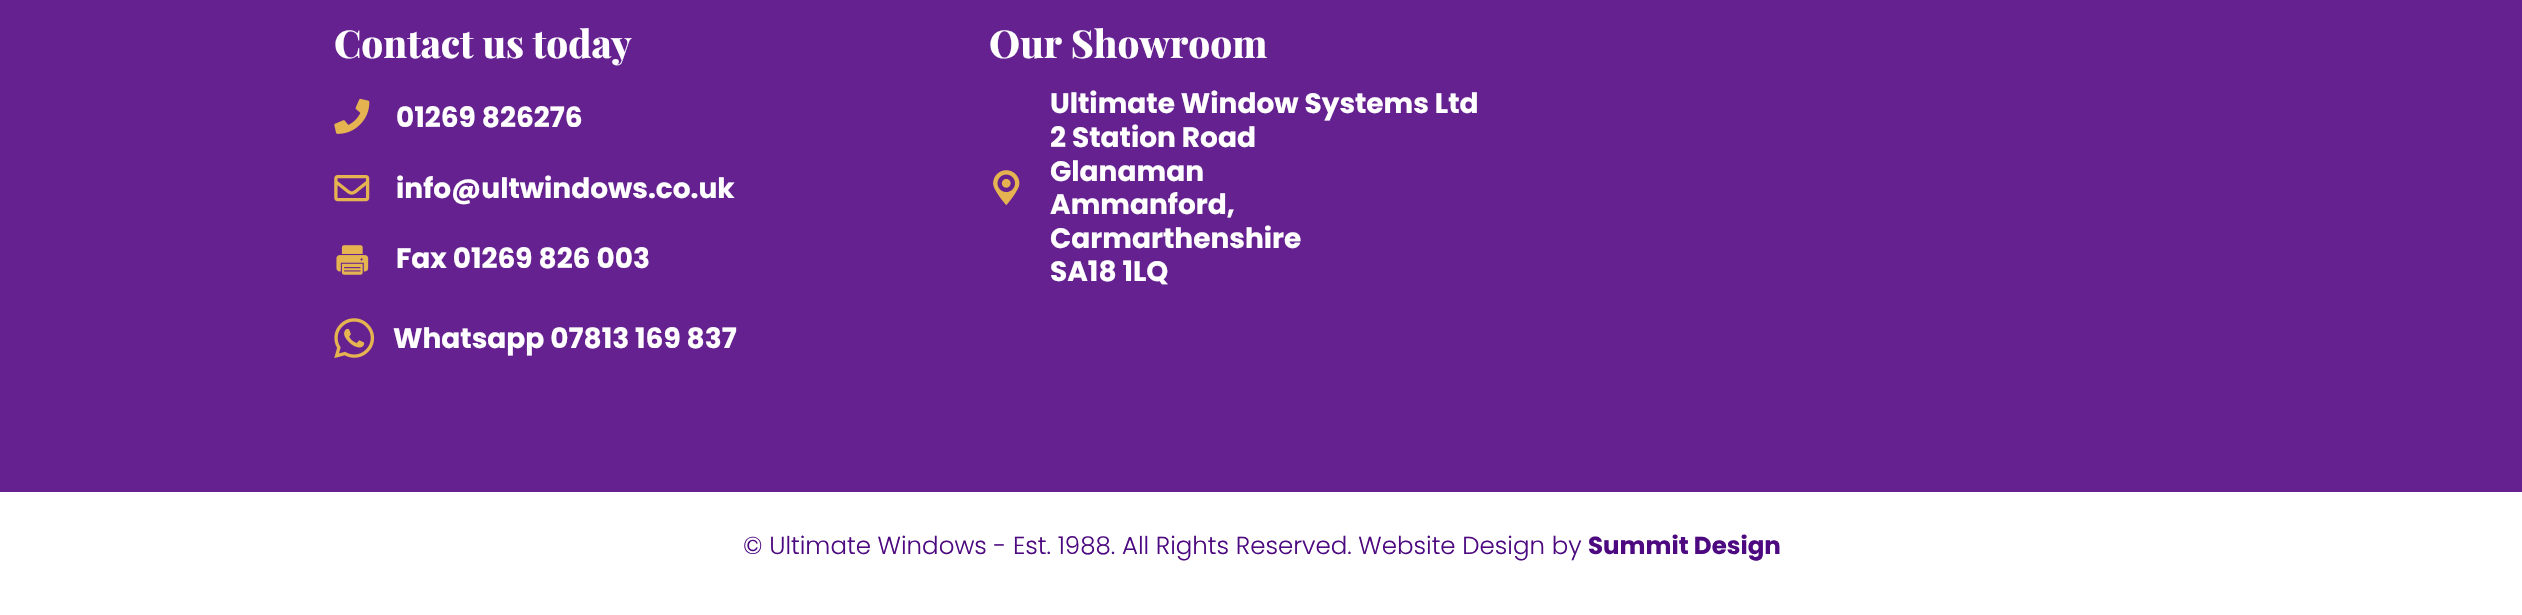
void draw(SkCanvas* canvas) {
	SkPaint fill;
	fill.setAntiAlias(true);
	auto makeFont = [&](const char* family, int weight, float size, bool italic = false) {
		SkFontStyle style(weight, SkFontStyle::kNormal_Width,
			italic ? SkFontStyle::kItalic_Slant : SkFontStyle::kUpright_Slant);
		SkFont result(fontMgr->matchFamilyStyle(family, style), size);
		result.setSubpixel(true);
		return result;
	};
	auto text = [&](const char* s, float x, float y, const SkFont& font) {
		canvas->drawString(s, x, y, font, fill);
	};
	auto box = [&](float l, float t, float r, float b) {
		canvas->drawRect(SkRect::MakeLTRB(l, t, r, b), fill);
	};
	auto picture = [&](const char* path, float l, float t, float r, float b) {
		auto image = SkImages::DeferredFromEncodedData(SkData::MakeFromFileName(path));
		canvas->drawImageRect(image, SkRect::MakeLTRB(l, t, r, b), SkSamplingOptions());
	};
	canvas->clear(0xFF652190);
	picture("image0.png", 334, 98, 370, 134);
	picture("image1.png", 334, 175, 370, 202);
	picture("image2.png", 336, 245, 369, 275);
	picture("image3.png", 334, 318, 375, 358);
	picture("image4.png", 993, 170, 1020, 206);
	fill.setColor(0xFFFFFFFF);
	box(0, 492, 2522, 615);
	auto font1 = makeFont("Playfair Display", 800, 38.5f);
	text("Contact us today", 334, 58, font1);
	auto font2 = makeFont("Poppins", 700, 28);
	text("01269 826276", 396, 127, font2);
	text("info@ultwindows.co.uk", 396, 198, font2);
	text("Fax 01269 826 003", 396, 268, font2);
	text("Whatsapp 07813 169 837", 393, 348, font2);
	text("Our Showroom", 989, 58, font1);
	text("Ultimate Window Systems Ltd", 1050, 113, font2);
	text("2 Station Road", 1050, 147, font2);
	text("Glanaman", 1050, 181, font2);
	text("Ammanford,", 1050, 214, font2);
	text("Carmarthenshire", 1050, 248, font2);
	text("SA18 1LQ", 1050, 281, font2);
	auto font3 = makeFont("Poppins", 300, 24.5f);
	fill.setColor(0xFF4D097F);
	text("© Ultimate Windows - Est. 1988. All Rights Reserved. Website Design by", 743, 554, font3);
	auto font4 = makeFont("Poppins", 700, 24.5f);
	text("Summit Design", 1588, 554, font4);
}
